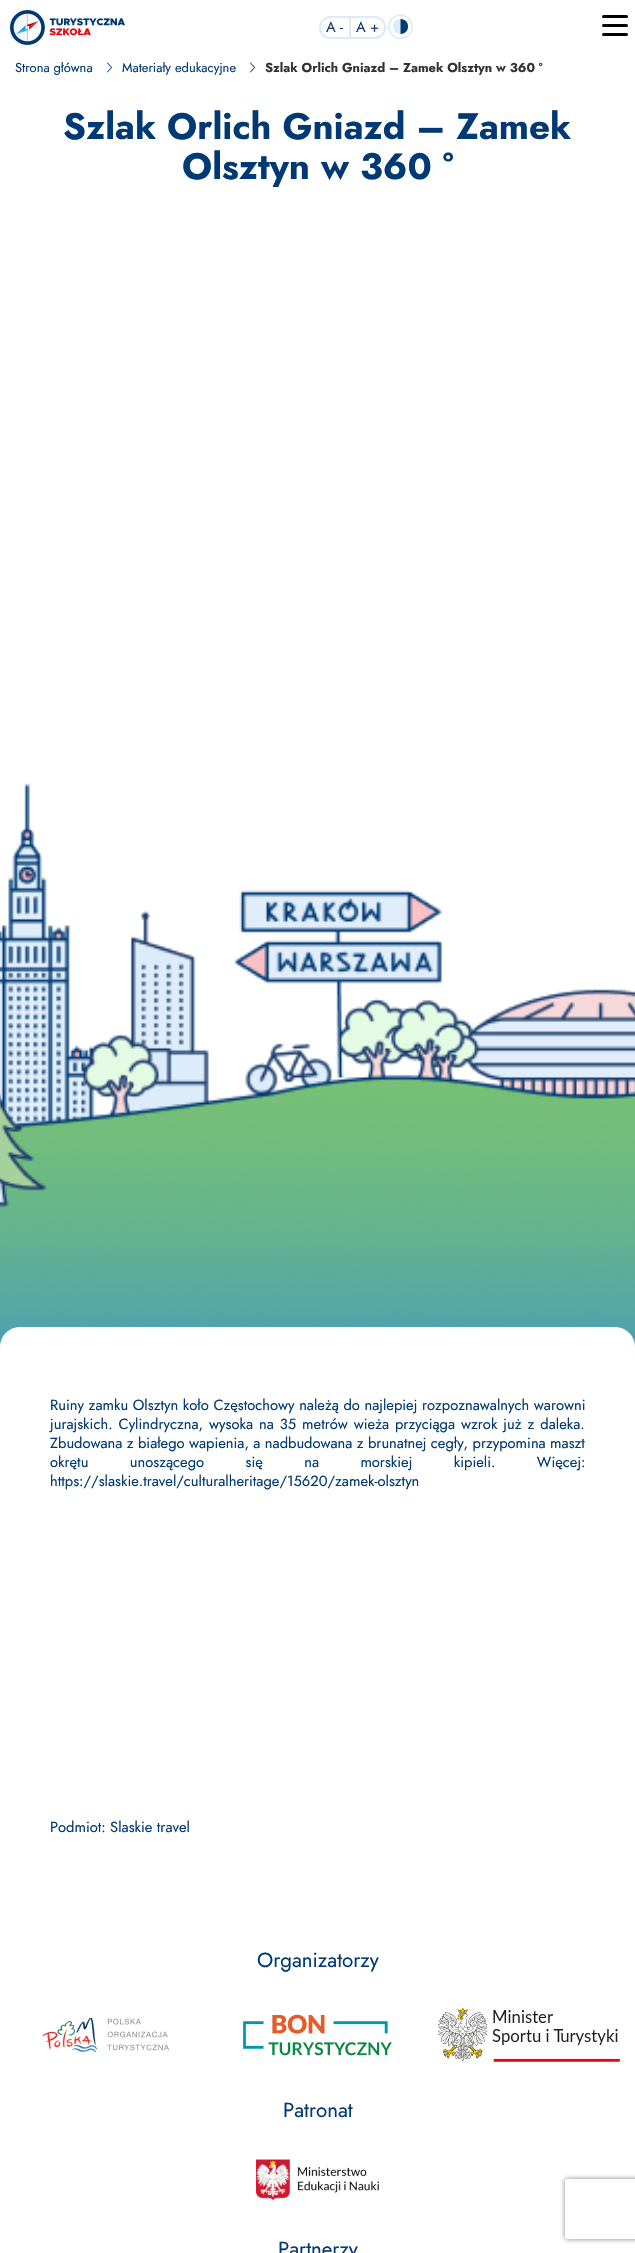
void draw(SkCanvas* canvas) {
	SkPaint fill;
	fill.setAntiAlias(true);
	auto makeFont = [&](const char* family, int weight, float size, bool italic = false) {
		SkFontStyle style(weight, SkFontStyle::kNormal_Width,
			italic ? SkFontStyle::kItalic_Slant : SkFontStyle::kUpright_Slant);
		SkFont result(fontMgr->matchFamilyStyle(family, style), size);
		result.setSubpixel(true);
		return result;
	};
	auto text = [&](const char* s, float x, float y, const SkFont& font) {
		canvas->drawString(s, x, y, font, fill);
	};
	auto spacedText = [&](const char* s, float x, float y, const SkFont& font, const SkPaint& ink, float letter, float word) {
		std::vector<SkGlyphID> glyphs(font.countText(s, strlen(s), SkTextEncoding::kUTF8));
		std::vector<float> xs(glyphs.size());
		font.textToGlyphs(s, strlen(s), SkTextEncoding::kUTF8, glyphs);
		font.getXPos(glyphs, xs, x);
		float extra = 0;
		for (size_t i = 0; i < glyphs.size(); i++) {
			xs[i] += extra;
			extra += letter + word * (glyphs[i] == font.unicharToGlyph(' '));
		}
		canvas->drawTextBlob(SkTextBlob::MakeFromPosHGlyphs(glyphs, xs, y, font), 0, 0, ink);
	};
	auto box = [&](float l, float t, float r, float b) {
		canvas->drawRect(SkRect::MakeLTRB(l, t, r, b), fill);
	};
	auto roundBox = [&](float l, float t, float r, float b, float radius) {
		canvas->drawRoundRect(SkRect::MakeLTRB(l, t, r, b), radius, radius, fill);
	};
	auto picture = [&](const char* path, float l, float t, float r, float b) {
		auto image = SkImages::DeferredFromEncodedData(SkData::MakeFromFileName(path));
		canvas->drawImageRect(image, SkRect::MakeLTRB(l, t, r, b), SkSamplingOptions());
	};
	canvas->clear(0xFFFFFFFF);
	picture("image2.png", 0, 0, 635, 1347);
	picture("image0.png", 10, 10, 125, 45);
	fill.setStyle(SkPaint::kStroke_Style);
	fill.setStrokeWidth(2);
	fill.setColor(0xFFDAEBFD);
	canvas->drawRoundRect(SkRect::MakeLTRB(320, 17, 385, 38), 10.5f, 10.5f, fill);
	fill.setStyle(SkPaint::kFill_Style);
	box(349, 18, 351, 37);
	picture("image1.png", 388, 14, 413, 40);
	canvas->drawPath(SkPathBuilder().moveTo(400.5f, 19).cubicTo(410.5f, 19, 410.5f, 34, 400.5f, 34).cubicTo(390.5f, 34, 390.5f, 19, 400.5f, 19).close().detach(), fill);
	fill.setColor(0xFF003973);
	canvas->drawPath(SkPathBuilder().moveTo(400.5f, 19).cubicTo(410.5f, 19, 410.5f, 34, 400.5f, 34).close().detach(), fill);
	fill.setColor(0xFF000000);
	roundBox(602, 24, 628, 27, 1.5f);
	roundBox(602, 15, 628, 18, 1.5f);
	roundBox(602, 33, 628, 36, 1.5f);
	picture("image3.png", 107, 62, 112, 73);
	picture("image3.png", 250, 62, 255, 73);
	fill.setColor(0xFFFFFFFF);
	canvas->drawPath(SkPathBuilder().moveTo(20, 1327).lineTo(615, 1327).cubicTo(626, 1327, 635, 1336, 635, 1347).lineTo(635, 1877).lineTo(0, 1877).lineTo(0, 1347).cubicTo(0, 1336, 9, 1327, 20, 1327).close().detach(), fill);
	picture("image4.png", 43, 2018, 169, 2052);
	picture("image5.png", 243, 2014, 392, 2056);
	picture("image6.png", 438, 2008, 620, 2062);
	picture("image7.png", 256, 2159, 379, 2201);
	canvas->save();
	canvas->clipPath(SkPathBuilder(SkPathFillType::kEvenOdd).moveTo(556, 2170).lineTo(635, 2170).lineTo(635, 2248).lineTo(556, 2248).close().moveTo(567, 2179).lineTo(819, 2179).cubicTo(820, 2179, 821, 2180, 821, 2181).lineTo(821, 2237).cubicTo(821, 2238, 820, 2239, 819, 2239).lineTo(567, 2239).cubicTo(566, 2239, 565, 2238, 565, 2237).lineTo(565, 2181).cubicTo(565, 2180, 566, 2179, 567, 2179).close().detach(), true);
	fill.setColor(0xFF808080);
	fill.setMaskFilter(SkMaskFilter::MakeBlur(kNormal_SkBlurStyle, 2.5f));
	canvas->drawRoundRect(SkRect::MakeLTRB(565, 2179, 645, 2239), 2, 2, fill);
	fill.setMaskFilter(nullptr);
	canvas->restore();
	auto font1 = makeFont("Jost", 400, 14.7f);
	fill.setColor(0xFF123A6F);
	text("A -", 326, 32, font1);
	text("A +", 356, 32, font1);
	auto font2 = makeFont("Jost", 400, 12.9f);
	fill.setColor(0xFF003973);
	text("Strona główna", 15, 72, font2);
	text("Materiały edukacyjne", 122, 72, font2);
	auto font3 = makeFont("Jost", 700, 12.9f);
	fill.setColor(0xFF333333);
	text("Szlak Orlich Gniazd – Zamek Olsztyn w 360 °", 265, 72, font3);
	auto font4 = makeFont("Jost", 700, 36.75f);
	fill.setColor(0xFF003973);
	text("Szlak Orlich Gniazd – Zamek", 63, 139, font4);
	text("Olsztyn w 360 °", 182, 179, font4);
	spacedText("Ruiny zamku Olsztyn koło Częstochowy należą do najlepiej rozpoznawalnych warowni", 50, 1410, font1, fill, 0, 0.25f);
	spacedText("jurajskich. Cylindryczna, wysoka na 35 metrów wieża przyciąga wzrok już z daleka.", 50, 1429, font1, fill, 0, 1.6f);
	text("Zbudowana z białego wapienia, a nadbudowana z brunatnej cegły, przypomina maszt", 50, 1448, font1);
	spacedText("okrętu unoszącego się na morskiej kipieli. Więcej:", 50, 1467, font1, fill, 0, 37);
	text("https://slaskie.travel/culturalheritage/15620/zamek-olsztyn", 50, 1486, font1);
	text("Podmiot: Slaskie travel", 50, 1832, font1);
	auto font5 = makeFont("Jost", 400, 20.5f);
	text("Organizatorzy", 257, 1967, font5);
	text("Patronat", 283, 2117, font5);
	text("Partnerzy", 278, 2256, font5);
}
